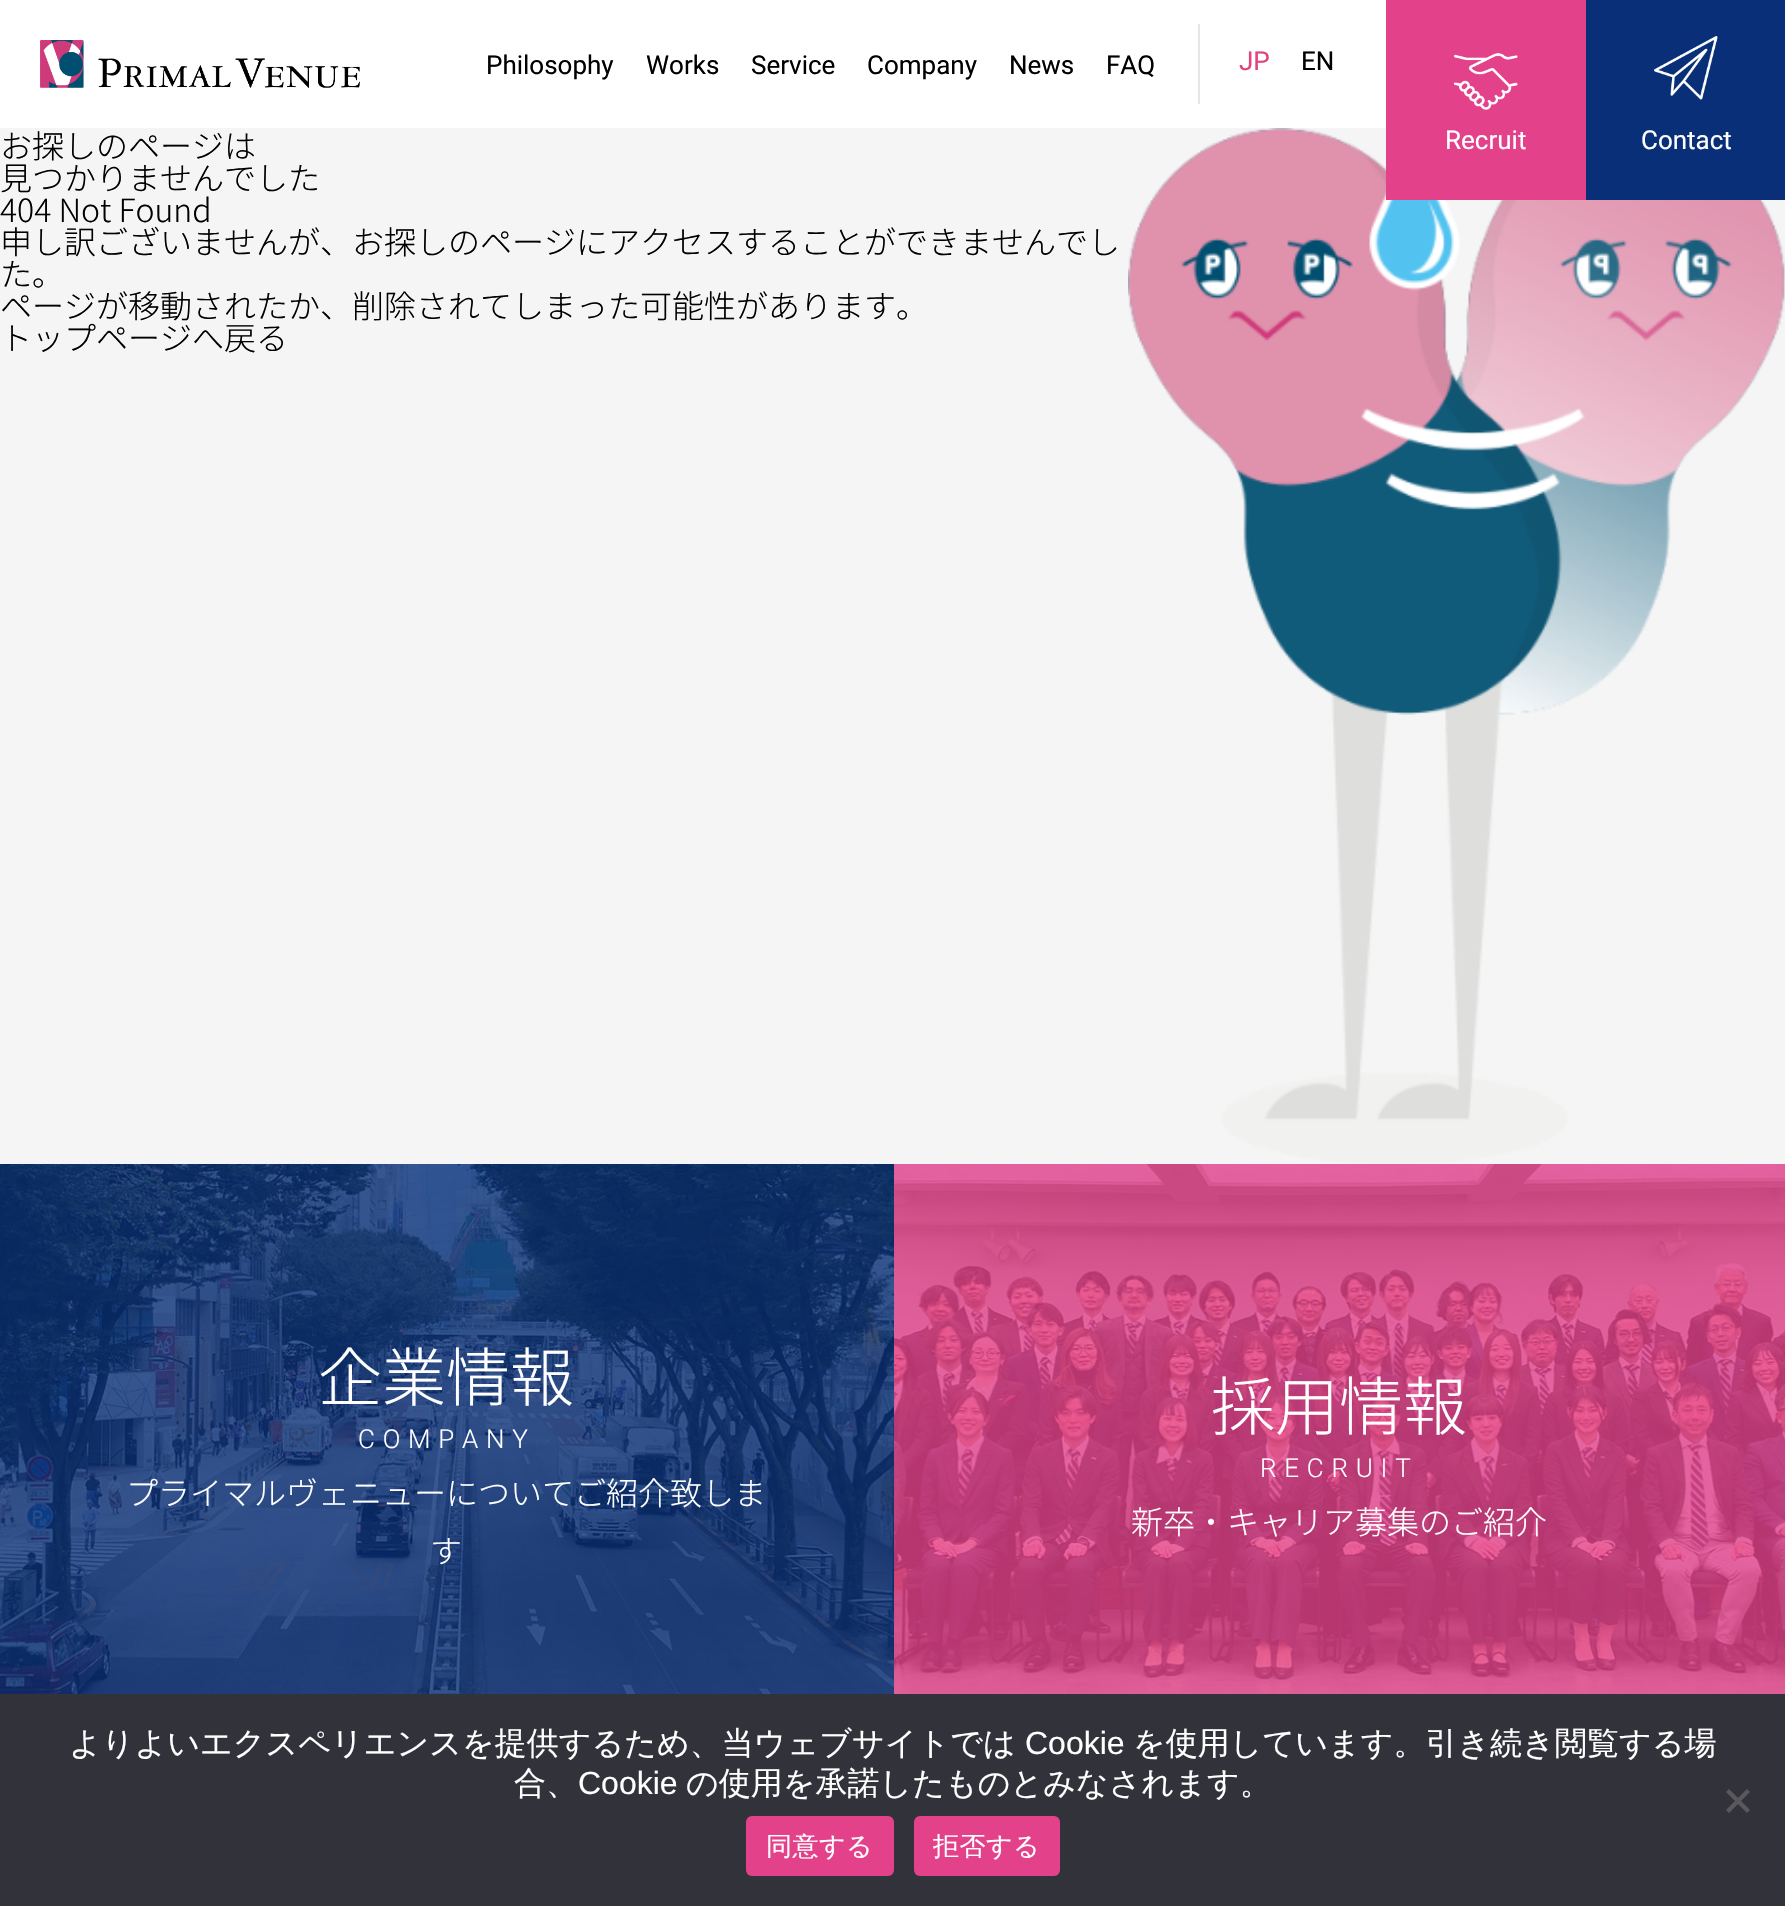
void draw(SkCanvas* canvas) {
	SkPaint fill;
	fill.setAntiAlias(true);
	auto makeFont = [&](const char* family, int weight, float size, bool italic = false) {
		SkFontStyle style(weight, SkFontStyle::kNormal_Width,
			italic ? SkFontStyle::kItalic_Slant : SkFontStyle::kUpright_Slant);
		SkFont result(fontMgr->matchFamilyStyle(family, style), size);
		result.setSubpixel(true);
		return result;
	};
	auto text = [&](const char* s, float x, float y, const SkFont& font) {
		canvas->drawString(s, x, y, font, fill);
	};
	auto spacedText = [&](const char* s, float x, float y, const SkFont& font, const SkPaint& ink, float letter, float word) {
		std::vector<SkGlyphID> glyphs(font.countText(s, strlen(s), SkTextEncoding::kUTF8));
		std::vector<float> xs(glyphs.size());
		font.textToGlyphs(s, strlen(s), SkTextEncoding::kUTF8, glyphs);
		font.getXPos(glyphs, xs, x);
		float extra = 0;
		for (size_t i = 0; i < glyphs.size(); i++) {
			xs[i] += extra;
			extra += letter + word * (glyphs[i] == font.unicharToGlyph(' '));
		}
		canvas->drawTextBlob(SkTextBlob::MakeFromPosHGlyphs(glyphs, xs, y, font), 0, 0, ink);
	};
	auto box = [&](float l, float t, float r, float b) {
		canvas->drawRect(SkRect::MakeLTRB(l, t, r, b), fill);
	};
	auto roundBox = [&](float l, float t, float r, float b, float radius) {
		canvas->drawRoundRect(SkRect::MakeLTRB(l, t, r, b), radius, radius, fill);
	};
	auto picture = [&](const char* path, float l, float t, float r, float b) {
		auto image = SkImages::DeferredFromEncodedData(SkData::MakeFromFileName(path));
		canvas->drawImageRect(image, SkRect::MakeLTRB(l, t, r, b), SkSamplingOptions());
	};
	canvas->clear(0xFFF5F5F5);
	fill.setColor(0xFFFFFFFF);
	box(0, 0, 1386, 128);
	picture("image0.png", 40, 40, 360, 88);
	fill.setColor(0xFFE5E5E5);
	box(1198, 24, 1200, 104);
	picture("image3.png", 1128, 128, 1785, 1164);
	fill.setColor(0xFFE3428B);
	box(1386, 0, 1586, 200);
	picture("image1.png", 1454, 53, 1518, 110);
	fill.setColor(0xFF082F77);
	box(1586, 0, 1785, 200);
	picture("image2.png", 1654, 36, 1718, 100);
	picture("image4.png", 0, 1164, 894, 1694);
	picture("image5.png", 894, 1164, 1785, 1694);
	fill.setColor(0xFF32323A);
	box(0, 1694, 1785, 1906);
	fill.setColor(0xFF59595D);
	canvas->drawPath(SkPathBuilder().moveTo(1747, 1789).lineTo(1750, 1792).lineTo(1729, 1813).lineTo(1726, 1810).close().detach(), fill);
	canvas->drawPath(SkPathBuilder().moveTo(1726, 1792).lineTo(1729, 1789).lineTo(1750, 1810).lineTo(1747, 1813).close().detach(), fill);
	fill.setColor(0xFFE3428B);
	roundBox(746, 1816, 894, 1876, 6);
	roundBox(914, 1816, 1060, 1876, 6);
	auto font1 = makeFont("Roboto", 400, 26);
	fill.setColor(0xFF000000);
	text("Philosophy", 486, 74, font1);
	text("Works", 646, 74, font1);
	text("Service", 751, 74, font1);
	text("Company", 867, 74, font1);
	text("News", 1009, 74, font1);
	text("FAQ", 1106, 74, font1);
	fill.setColor(0xFFE1437C);
	text("JP", 1239, 70, font1);
	fill.setColor(0xFF000000);
	text("EN", 1301, 70, font1);
	fill.setColor(0xFFFFFFFF);
	text("Recruit", 1445, 149, font1);
	text("Contact", 1641, 149, font1);
	auto font2 = makeFont("Noto Sans JP", 300, 32);
	fill.setColor(0xFF000000);
	text("お探しのページは", 0, 158, font2);
	text("見つかりませんでした", 0, 190, font2);
	text("404 Not Found", 0, 222, font2);
	text("申し訳ございませんが、お探しのページにアクセスすることができませんでし", 0, 254, font2);
	text("た。", 0, 286, font2);
	text("ページが移動されたか、削除されてしまった可能性があります。", 0, 318, font2);
	text("トップページへ戻る", 0, 350, font2);
	auto font3 = makeFont("Noto Sans JP", 300, 64);
	fill.setColor(0xFFFFFFFF);
	text("企業情報", 318, 1401, font3);
	auto font4 = makeFont("Roboto", 300, 26);
	spacedText("COMPANY", 358, 1448, font4, fill, 7.75f, 0);
	text("プライマルヴェニューについてご紹介致しま", 126, 1505, font2);
	text("す", 430, 1563, font2);
	text("採用情報", 1211, 1430, font3);
	spacedText("RECRUIT", 1260, 1477, font4, fill, 7.75f, 0);
	text("新卒・キャリア募集のご紹介", 1131, 1534, font2);
	auto font5 = makeFont("WenQuanYi Zen Hei", 500, 32);
	text("よりよいエクスペリエンスを提供するため、当ウェブサイトでは", 69, 1754, font5);
	auto font6 = makeFont("Liberation Sans", 400, 32);
	text("Cookie", 1025, 1754, font6);
	text("を使用しています。引き続き閲覧する場", 1133, 1754, font5);
	text("合、", 514, 1794, font5);
	text("Cookie", 578, 1794, font6);
	text("の使用を承諾したものとみなされます。", 686, 1794, font5);
	auto font7 = makeFont("WenQuanYi Zen Hei", 500, 26);
	spacedText("同意する", 766, 1855, font7, fill, 0.5f, 0);
	spacedText("拒否する", 933, 1855, font7, fill, 0.5f, 0);
}
